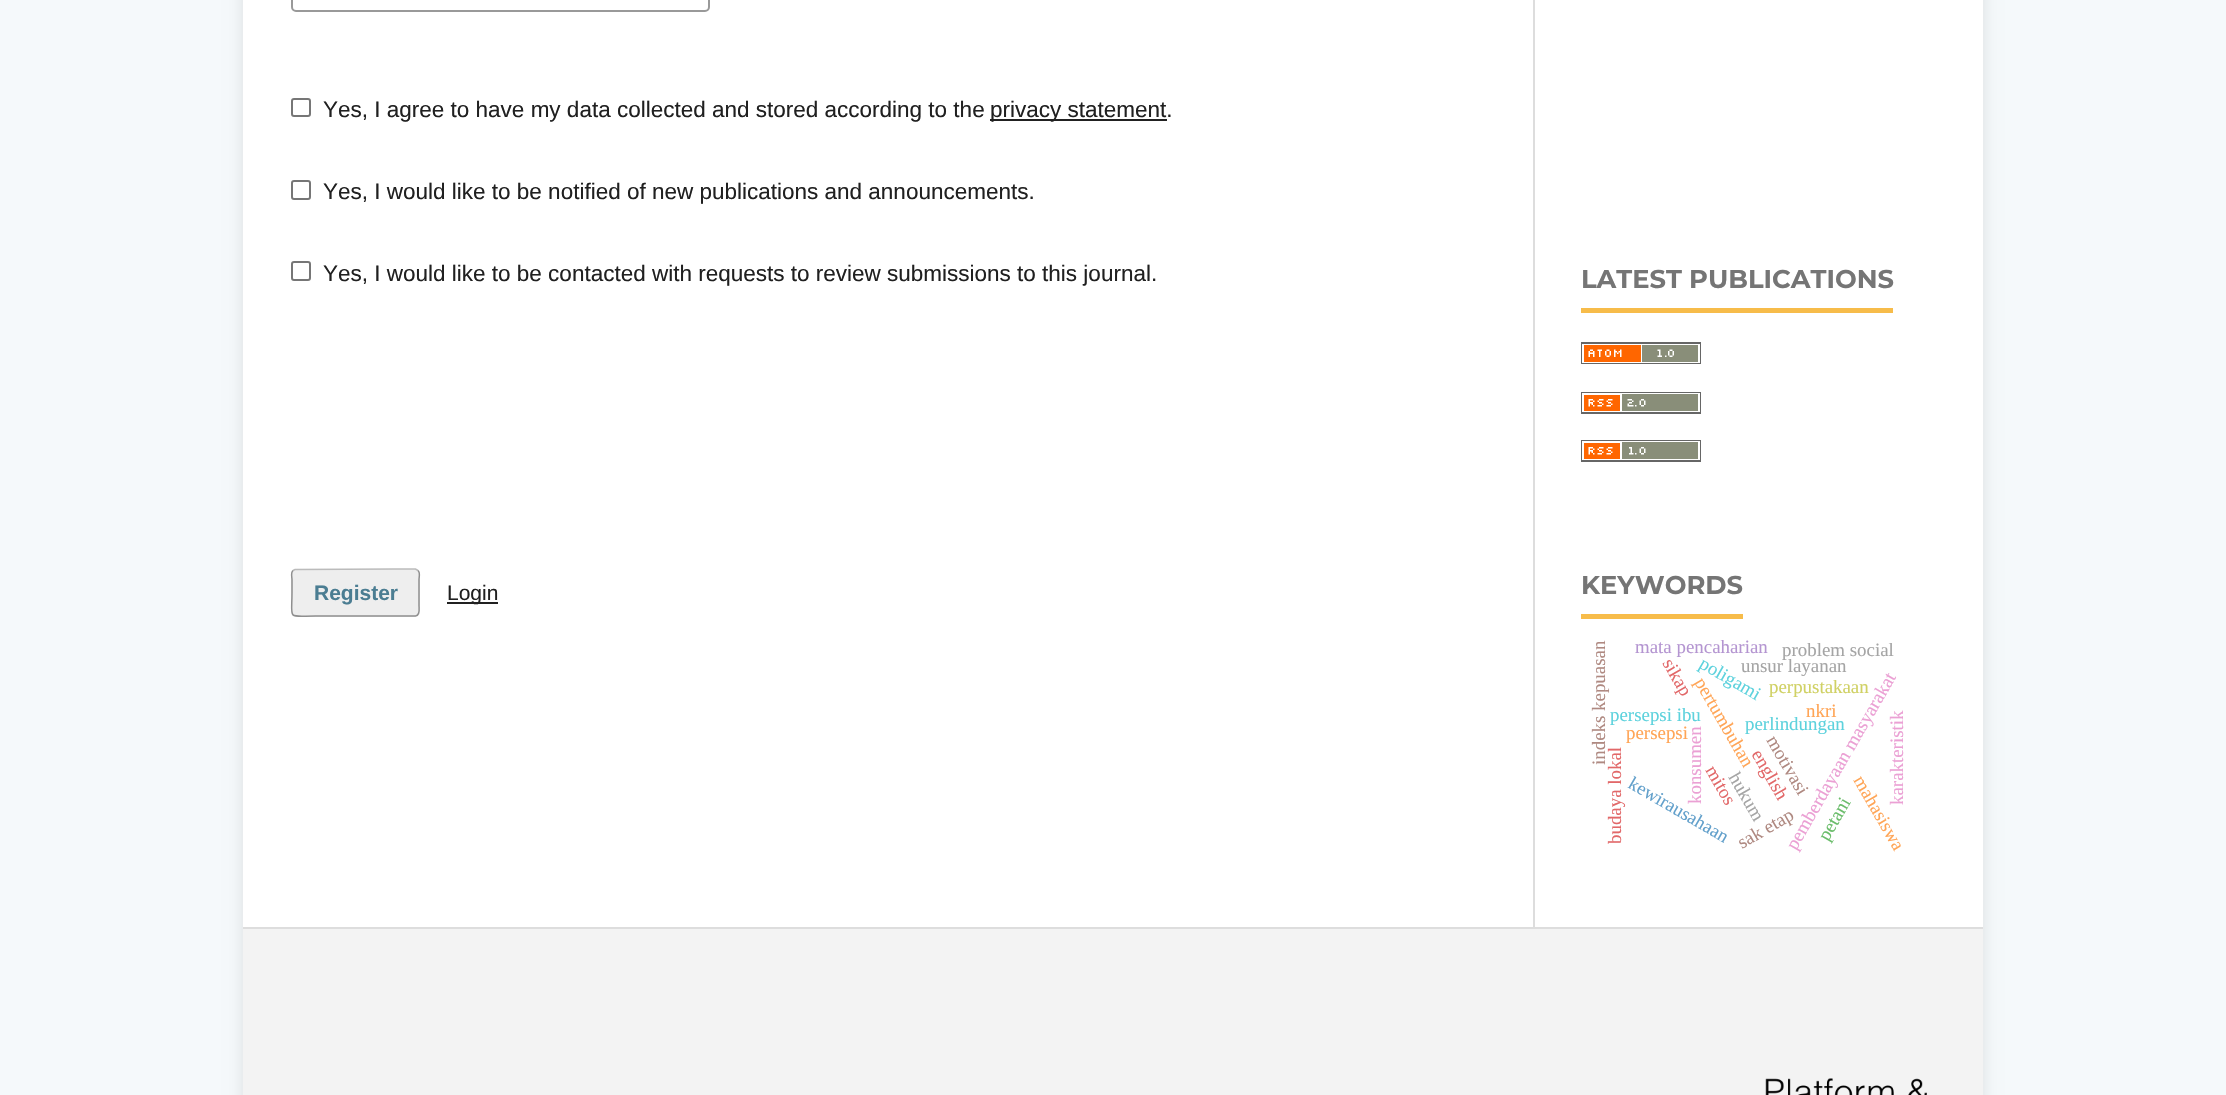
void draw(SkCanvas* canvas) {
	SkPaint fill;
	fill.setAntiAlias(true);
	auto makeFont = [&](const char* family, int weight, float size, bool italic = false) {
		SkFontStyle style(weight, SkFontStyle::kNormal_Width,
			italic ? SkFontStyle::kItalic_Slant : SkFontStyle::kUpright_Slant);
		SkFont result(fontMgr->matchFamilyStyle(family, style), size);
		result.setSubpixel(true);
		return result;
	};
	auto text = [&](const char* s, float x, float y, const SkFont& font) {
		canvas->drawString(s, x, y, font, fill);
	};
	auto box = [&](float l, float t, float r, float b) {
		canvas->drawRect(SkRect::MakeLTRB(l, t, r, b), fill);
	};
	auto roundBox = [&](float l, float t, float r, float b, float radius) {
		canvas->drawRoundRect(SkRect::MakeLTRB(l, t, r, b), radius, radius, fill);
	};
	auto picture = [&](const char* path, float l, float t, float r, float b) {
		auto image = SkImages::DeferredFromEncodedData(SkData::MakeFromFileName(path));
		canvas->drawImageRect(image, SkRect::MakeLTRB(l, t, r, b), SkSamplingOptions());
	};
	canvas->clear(0xFFF5F9FB);
	fill.setColor(0x1A000000);
	fill.setMaskFilter(SkMaskFilter::MakeBlur(kNormal_SkBlurStyle, 7.5f));
	canvas->drawRect(SkRect::MakeLTRB(243, -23, 1983, 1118), fill);
	fill.setMaskFilter(nullptr);
	fill.setColor(0xFFFFFFFF);
	box(243, 0, 1983, 927);
	fill.setStyle(SkPaint::kStroke_Style);
	fill.setStrokeWidth(2);
	fill.setColor(0xFF999999);
	canvas->drawRoundRect(SkRect::MakeLTRB(292, -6, 709, 11), 4, 4, fill);
	fill.setColor(0xFF767676);
	canvas->drawRoundRect(SkRect::MakeLTRB(292, 99, 310, 116), 2, 2, fill);
	fill.setStyle(SkPaint::kFill_Style);
	fill.setColor(0xFF212121);
	box(990, 119, 1167, 121);
	fill.setStyle(SkPaint::kStroke_Style);
	fill.setColor(0xFF767676);
	canvas->drawRoundRect(SkRect::MakeLTRB(292, 181, 310, 199), 2, 2, fill);
	canvas->drawRoundRect(SkRect::MakeLTRB(292, 262, 310, 280), 2, 2, fill);
	fill.setStyle(SkPaint::kFill_Style);
	fill.setColor(0xFFEEEEEE);
	roundBox(291, 569, 420, 617, 5);
	fill.setStyle(SkPaint::kStroke_Style);
	fill.setStrokeWidth(1.5f);
	fill.setColor(0xFFBBBBBB);
	canvas->drawPath(SkPathBuilder().moveTo(293, 570.5f).lineTo(295, 569.5f).lineTo(395.5f, 569).lineTo(415.5f, 569).lineTo(418, 570.5f).detach(), fill);
	fill.setColor(0x66000000);
	canvas->drawPath(SkPathBuilder().moveTo(418, 570.5f).cubicTo(420.5f, 572.5f, 419, 577.5f, 419, 579.5f).lineTo(419, 605.5f).cubicTo(419, 608.5f, 420.5f, 615.5f, 415.5f, 616).lineTo(315.5f, 616).cubicTo(286.5f, 616, 292, 620.5f, 292, 592.5f).lineTo(292, 579.5f).cubicTo(292, 577.5f, 290.5f, 572.5f, 293, 570.5f).detach(), fill);
	fill.setStyle(SkPaint::kFill_Style);
	fill.setColor(0xFF212121);
	box(447, 602, 498, 604);
	fill.setColor(0xFFDDDDDD);
	box(1533, 0, 1535, 927);
	fill.setColor(0xFFF7BC4A);
	box(1581, 308, 1893, 313);
	picture("image0.png", 1581, 342, 1701, 364);
	picture("image1.png", 1581, 392, 1701, 414);
	picture("image2.png", 1581, 440, 1701, 462);
	box(1581, 614, 1743, 619);
	fill.setColor(0xFFF3F3F3);
	box(243, 929, 1983, 1095);
	fill.setColor(0xFFDDDDDD);
	box(243, 927, 1983, 929);
	picture("image3.png", 1765, 1078, 1927, 1095);
	auto font1 = makeFont("Liberation Sans", 400, 22.5f);
	fill.setColor(0xFF202020);
	text("Yes, I agree to have my data collected and stored according to the", 323, 117, font1);
	text("privacy statement.", 990, 117, font1);
	text("Yes, I would like to be notified of new publications and announcements.", 323, 199, font1);
	text("Yes, I would like to be contacted with requests to review submissions to this journal.", 323, 281, font1);
	auto font2 = makeFont("Liberation Sans", 700, 21);
	fill.setColor(0xFF4B7D92);
	text("Register", 314, 600, font2);
	auto font3 = makeFont("Liberation Sans", 400, 21);
	fill.setColor(0xFF202020);
	text("Login", 447, 600, font3);
	auto font4 = makeFont("Montserrat", 700, 25.75f);
	fill.setColor(0xFF757575);
	text("LATEST PUBLICATIONS", 1581, 288, font4);
	text("KEYWORDS", 1581, 594, font4);
	auto font5 = makeFont("Liberation Serif", 400, 18.9f);
	fill.setColor(0xFFAF8981);
	canvas->save();
	canvas->rotate(-90, 1605, 765);
	text("indeks kepuasan", 1605, 765, font5);
	canvas->restore();
	fill.setColor(0xFFB495D1);
	text("mata pencaharian", 1635, 653, font5);
	fill.setColor(0xFFA5A5A5);
	text("problem social", 1782, 656, font5);
	fill.setColor(0xFFE26869);
	canvas->save();
	canvas->rotate(60, 1662, 663);
	text("sikap", 1662, 663, font5);
	canvas->restore();
	fill.setColor(0xFFA5A5A5);
	text("unsur layanan", 1741, 672, font5);
	fill.setColor(0xFFFFA556);
	text("persepsi", 1626, 739, font5);
	fill.setColor(0xFFEBA0D4);
	canvas->save();
	canvas->rotate(-90, 1701, 804);
	text("konsumen", 1701, 804, font5);
	canvas->restore();
	fill.setColor(0xFF5DD2DD);
	text("perlindungan", 1745, 730, font5);
	fill.setColor(0xFFEBA0D4);
	canvas->save();
	canvas->rotate(-60, 1796, 851);
	text("pemberdayaan masyarakat", 1796, 851, font5);
	canvas->restore();
	fill.setColor(0xFFFFA556);
	text("nkri", 1806, 717, font5);
	fill.setColor(0xFFEBA0D4);
	canvas->save();
	canvas->rotate(-90, 1903, 805);
	text("karakteristik", 1903, 805, font5);
	canvas->restore();
	fill.setColor(0xFFFFA556);
	canvas->save();
	canvas->rotate(60, 1694, 682);
	text("pertumbuhan", 1694, 682, font5);
	canvas->restore();
	fill.setColor(0xFF5DD2DD);
	canvas->save();
	canvas->rotate(30, 1698, 667);
	text("poligami", 1698, 667, font5);
	canvas->restore();
	fill.setColor(0xFFD0D164);
	text("perpustakaan", 1769, 693, font5);
	fill.setColor(0xFF5DD2DD);
	text("persepsi ibu", 1610, 721, font5);
	fill.setColor(0xFFE26869);
	canvas->save();
	canvas->rotate(-90, 1621, 844);
	text("budaya lokal", 1621, 844, font5);
	canvas->restore();
	fill.setColor(0xFFAF8981);
	canvas->save();
	canvas->rotate(60, 1766, 740);
	text("motivasi", 1766, 740, font5);
	canvas->restore();
	fill.setColor(0xFFA5A5A5);
	canvas->save();
	canvas->rotate(60, 1728, 777);
	text("hukum", 1728, 777, font5);
	canvas->restore();
	fill.setColor(0xFFE26869);
	canvas->save();
	canvas->rotate(60, 1751, 754);
	text("english", 1751, 754, font5);
	canvas->restore();
	fill.setColor(0xFF62A0CB);
	canvas->save();
	canvas->rotate(30, 1627, 787);
	text("kewirausahaan", 1627, 787, font5);
	canvas->restore();
	fill.setColor(0xFFE26869);
	canvas->save();
	canvas->rotate(60, 1705, 770);
	text("mitos", 1705, 770, font5);
	canvas->restore();
	fill.setColor(0xFFAF8981);
	canvas->save();
	canvas->rotate(-30, 1742, 849);
	text("sak etap", 1742, 849, font5);
	canvas->restore();
	fill.setColor(0xFF6BBD6B);
	canvas->save();
	canvas->rotate(-60, 1828, 842);
	text("petani", 1828, 842, font5);
	canvas->restore();
	fill.setColor(0xFFFFA556);
	canvas->save();
	canvas->rotate(60, 1853, 780);
	text("mahasiswa", 1853, 780, font5);
	canvas->restore();
}
